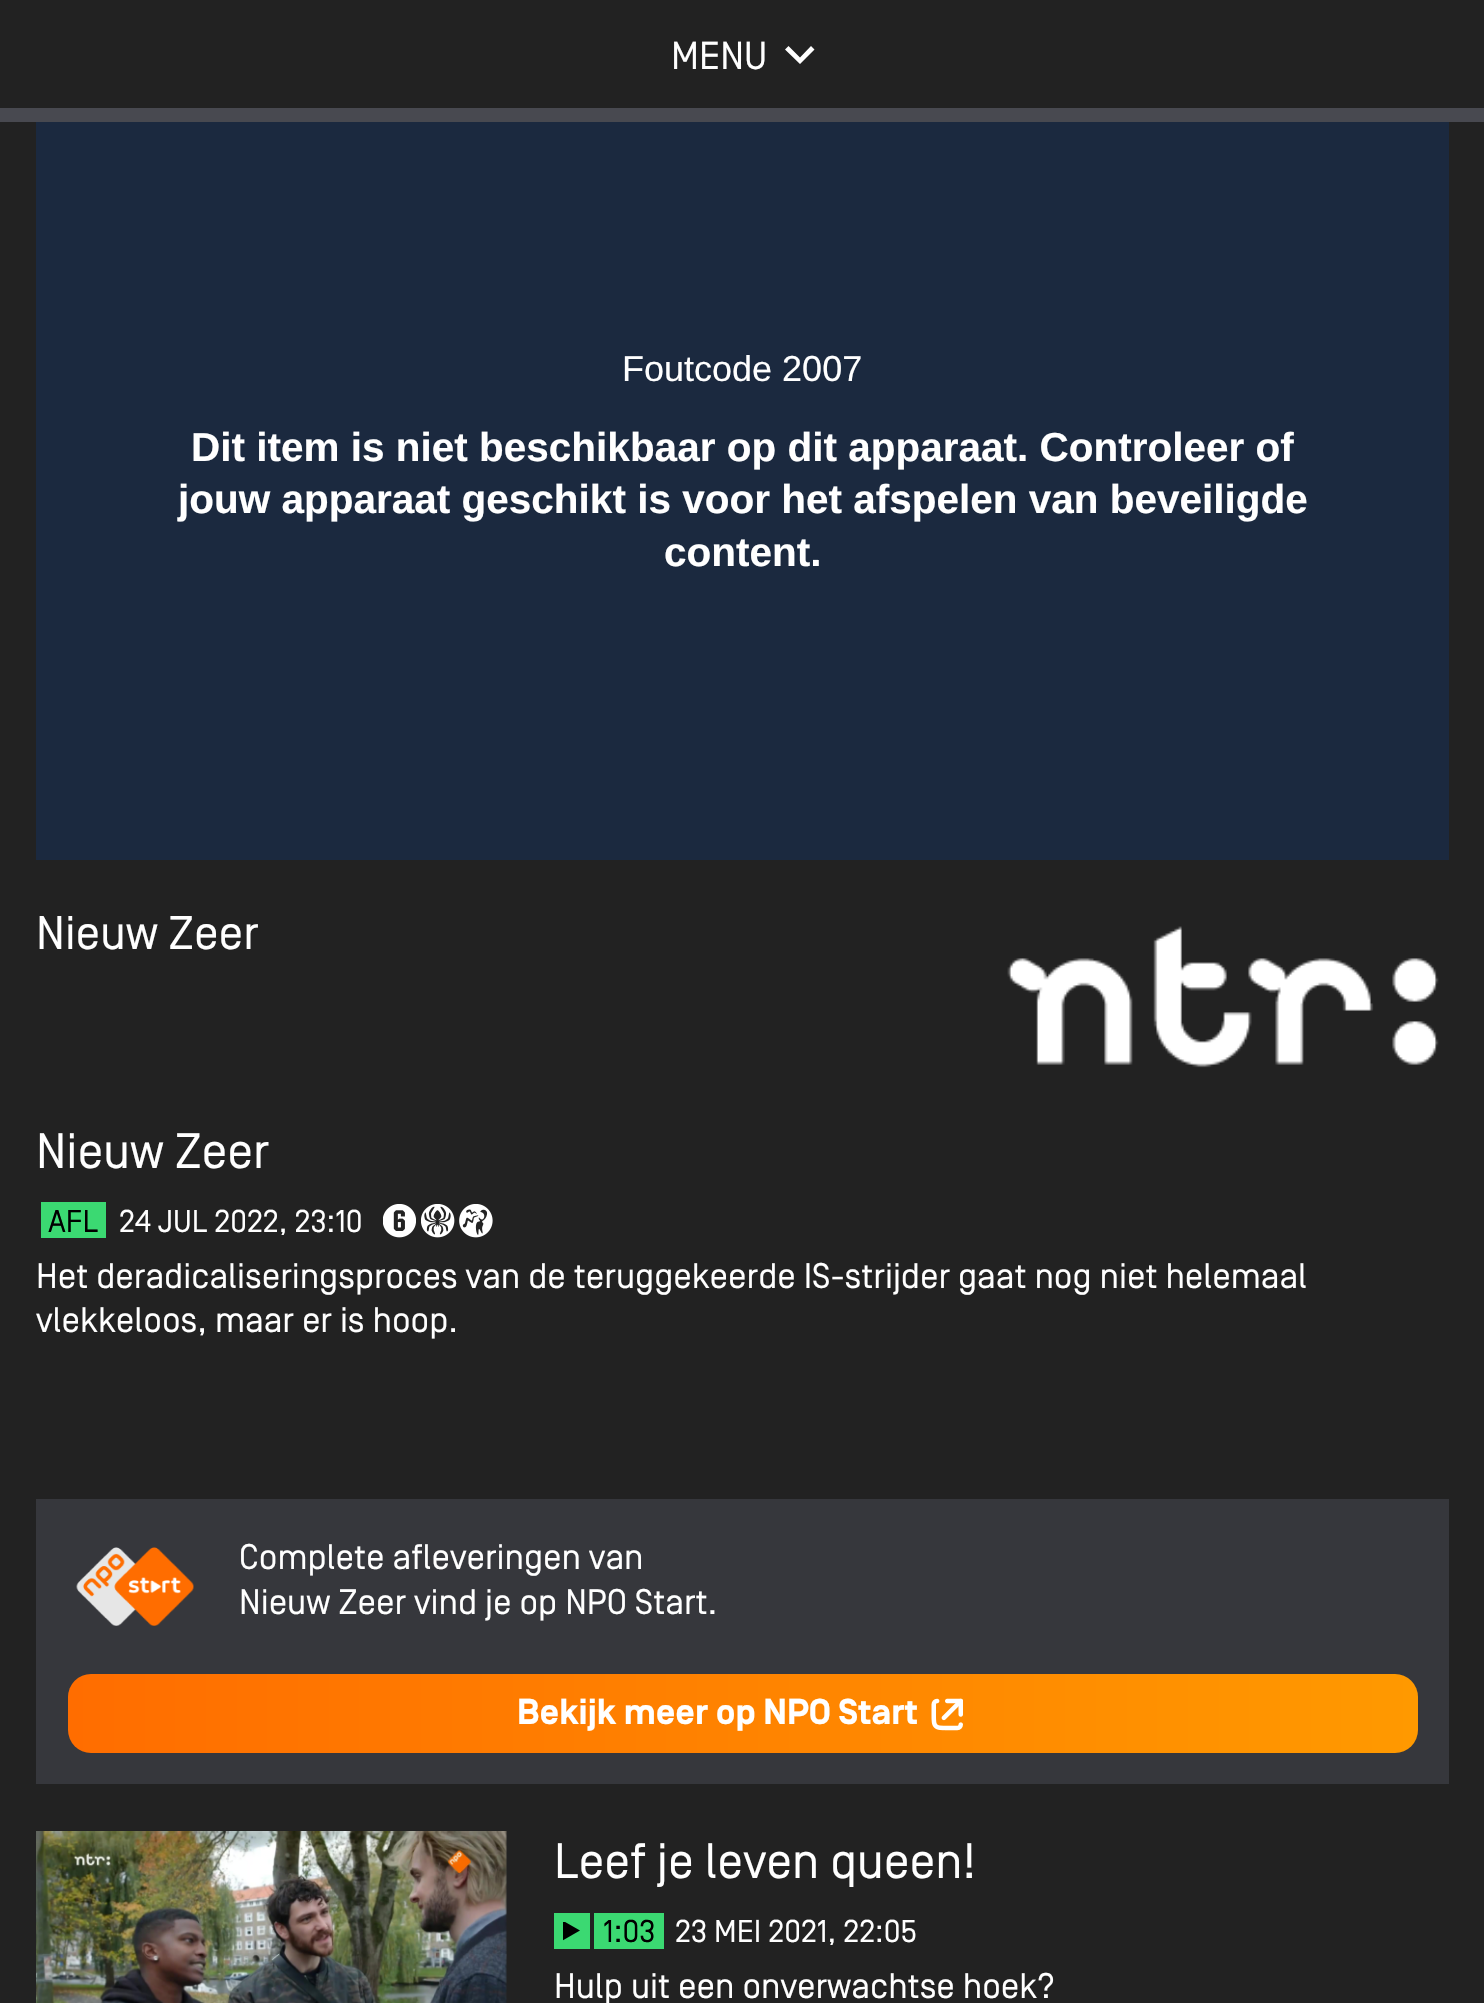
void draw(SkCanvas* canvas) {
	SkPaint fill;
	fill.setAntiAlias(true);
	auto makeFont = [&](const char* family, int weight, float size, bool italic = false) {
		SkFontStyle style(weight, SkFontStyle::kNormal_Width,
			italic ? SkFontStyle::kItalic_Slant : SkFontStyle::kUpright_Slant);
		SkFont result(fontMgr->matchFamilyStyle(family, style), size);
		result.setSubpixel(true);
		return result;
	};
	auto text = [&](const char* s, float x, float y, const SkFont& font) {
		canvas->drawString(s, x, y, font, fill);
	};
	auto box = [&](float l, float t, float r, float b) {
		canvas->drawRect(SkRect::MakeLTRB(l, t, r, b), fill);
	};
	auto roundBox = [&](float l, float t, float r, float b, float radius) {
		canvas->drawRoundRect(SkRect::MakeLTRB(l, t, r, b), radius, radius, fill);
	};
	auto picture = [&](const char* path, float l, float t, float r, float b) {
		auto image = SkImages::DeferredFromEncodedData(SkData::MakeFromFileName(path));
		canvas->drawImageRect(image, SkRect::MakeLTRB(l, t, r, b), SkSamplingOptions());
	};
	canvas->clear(0xFF222222);
	fill.setColor(0xFFFFFFFF);
	canvas->drawPath(SkPathBuilder(SkPathFillType::kEvenOdd).moveTo(785, 49.5f).lineTo(788.5f, 46).lineTo(800, 57.5f).lineTo(811, 46).lineTo(814.5f, 49.5f).lineTo(800, 64).close().detach(), fill);
	fill.setColor(0xFF1B293F);
	box(36, 122, 1449, 860);
	picture("image0.png", 1007, 926, 1439, 1068);
	fill.setColor(0xFF3BD972);
	box(41, 1202, 106, 1238);
	picture("image1.png", 383, 1204, 416, 1238);
	picture("image2.png", 421, 1204, 455, 1238);
	picture("image3.png", 459, 1204, 493, 1238);
	fill.setColor(0xFF36373C);
	box(36, 1499, 1449, 1784);
	picture("image4.png", 76, 1547, 194, 1626);
	{
		const SkColor colors[] = {0xFFFF6D00, 0xFFFF9900};
		const float stops[] = {0, 1};
		const SkPoint ends[] = {{68, 1713}, {1418, 1713}};
		fill.setShader(SkGradientShader::MakeLinear(ends, colors, stops, 2, SkTileMode::kClamp));
		fill.setAlpha(255);
	}
	roundBox(68, 1674, 1418, 1753, 23);
	picture("image5.png", 931, 1698, 963, 1731);
	picture("image6.png", 36, 1831, 507, 2003);
	fill.setShader(nullptr);
	fill.setColor(0xFF3BD972);
	box(554, 1913, 590, 1949);
	canvas->save();
	canvas->clipRect(SkRect::MakeLTRB(563, 1922, 582, 1941));
	fill.setColor(0xFF000000);
	canvas->drawPath(SkPathBuilder(SkPathFillType::kEvenOdd).moveTo(580, 1930.5f).lineTo(562.5f, 1940.5f).lineTo(562.5f, 1920.5f).close().detach(), fill);
	canvas->restore();
	fill.setColor(0xFF3BD972);
	box(594, 1913, 664, 1949);
	fill.setColor(0xFF484950);
	box(0, 108, 1484, 122);
	auto font1 = makeFont("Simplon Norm", 400, 39);
	fill.setColor(0xFFFFFFFF);
	text("MENU", 671, 69, font1);
	auto font2 = makeFont("Liberation Sans", 400, 36);
	text("Foutcode 2007", 622, 381, font2);
	auto font3 = makeFont("Liberation Sans", 700, 40.5f);
	text("Dit item is niet beschikbaar op dit apparaat. Controleer of", 191, 461, font3);
	text("jouw apparaat geschikt is voor het afspelen van beveiligde", 178, 513, font3);
	text("content.", 664, 566, font3);
	auto font4 = makeFont("Simplon Norm", 400, 47.25f);
	text("Nieuw Zeer", 36, 949, font4);
	auto font5 = makeFont("Simplon Norm", 400, 49.5f);
	text("Nieuw Zeer", 36, 1168, font5);
	auto font6 = makeFont("Simplon Norm", 400, 31.5f);
	fill.setColor(0xFF000000);
	text("AFL", 48, 1232, font6);
	fill.setColor(0xFFFFFFFF);
	text("24 JUL 2022, 23:10", 119, 1232, font6);
	auto font7 = makeFont("Simplon Norm", 400, 35.45f);
	text("Het deradicaliseringsproces van de teruggekeerde IS-strijder gaat nog niet helemaal", 36, 1288, font7);
	text("vlekkeloos, maar er is hoop.", 36, 1332, font7);
	text("Complete afleveringen van", 239, 1569, font7);
	text("Nieuw Zeer vind je op NPO Start.", 239, 1614, font7);
	auto font8 = makeFont("Simplon Norm", 700, 36);
	text("Bekijk meer op NPO Start", 517, 1724, font8);
	text("Leef je leven queen!", 554, 1878, font5);
	fill.setColor(0xFF000000);
	text("1:03", 603, 1942, font6);
	fill.setColor(0xFFFFFFFF);
	text("23 MEI 2021, 22:05", 675, 1942, font6);
	text("Hulp uit een onverwachtse hoek?", 554, 1998, font7);
}
